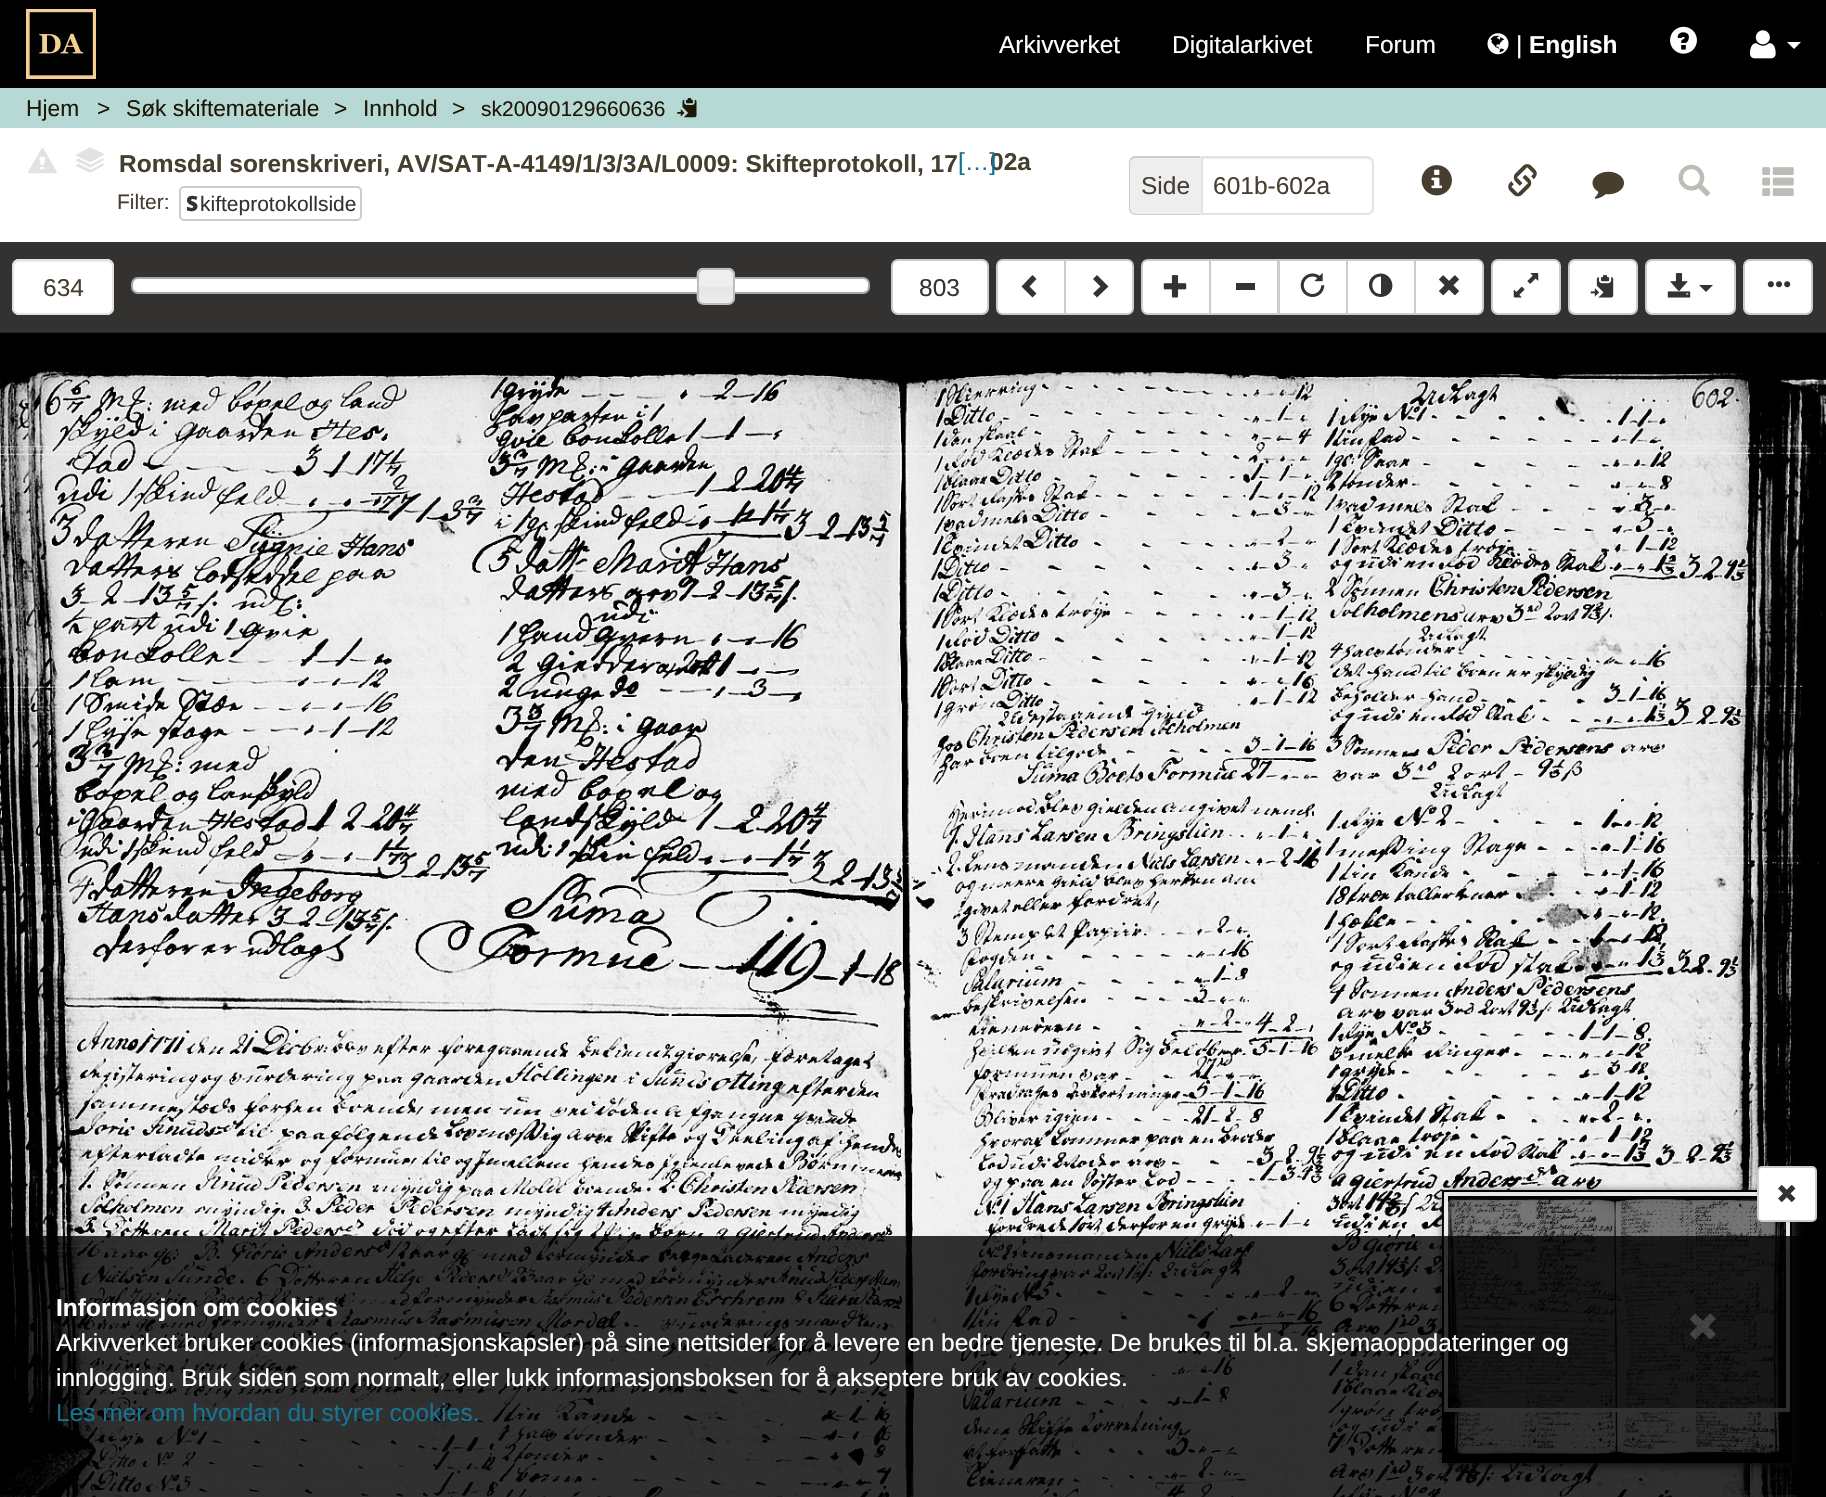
void draw(SkCanvas* canvas) {
	SkPaint fill;
	fill.setAntiAlias(true);
	auto makeFont = [&](const char* family, int weight, float size, bool italic = false) {
		SkFontStyle style(weight, SkFontStyle::kNormal_Width,
			italic ? SkFontStyle::kItalic_Slant : SkFontStyle::kUpright_Slant);
		SkFont result(fontMgr->matchFamilyStyle(family, style), size);
		result.setSubpixel(true);
		return result;
	};
	auto text = [&](const char* s, float x, float y, const SkFont& font) {
		canvas->drawString(s, x, y, font, fill);
	};
	auto box = [&](float l, float t, float r, float b) {
		canvas->drawRect(SkRect::MakeLTRB(l, t, r, b), fill);
	};
	auto roundBox = [&](float l, float t, float r, float b, float radius) {
		canvas->drawRoundRect(SkRect::MakeLTRB(l, t, r, b), radius, radius, fill);
	};
	auto picture = [&](const char* path, float l, float t, float r, float b) {
		auto image = SkImages::DeferredFromEncodedData(SkData::MakeFromFileName(path));
		canvas->drawImageRect(image, SkRect::MakeLTRB(l, t, r, b), SkSamplingOptions());
	};
	canvas->clear(0xFFB6D9D6);
	fill.setColor(0xFF000000);
	box(0, 0, 1826, 88);
	picture("image0.png", 26, 9, 96, 79);
	picture("image1.png", 1487, 33, 1509, 55);
	picture("image2.png", 1670, 26, 1697, 54);
	picture("image3.png", 1750, 30, 1776, 59);
	fill.setColor(0xFFFFFFFF);
	canvas->drawPath(SkPathBuilder().moveTo(1787, 42).lineTo(1801, 42).lineTo(1794, 49).close().detach(), fill);
	picture("image4.png", 677, 98, 697, 118);
	box(0, 128, 1826, 242);
	picture("image5.png", 28, 148, 57, 174);
	picture("image10.png", 75, 163, 104, 173);
	picture("image9.png", 79, 161, 102, 170);
	picture("image8.png", 75, 158, 104, 168);
	picture("image7.png", 78, 155, 102, 165);
	picture("image6.png", 75, 147, 104, 162);
	box(990, 153, 996, 171);
	fill.setStyle(SkPaint::kStroke_Style);
	fill.setStrokeWidth(2);
	fill.setColor(0xFFCCCCCC);
	canvas->drawRoundRect(SkRect::MakeLTRB(180, 187, 361, 220), 4, 4, fill);
	fill.setStyle(SkPaint::kFill_Style);
	fill.setColor(0xFFEEEEEE);
	canvas->drawPath(SkPathBuilder().moveTo(1136, 156).lineTo(1201, 156).lineTo(1201, 215).lineTo(1136, 215).cubicTo(1132, 215, 1129, 212, 1129, 208).lineTo(1129, 163).cubicTo(1129, 159, 1132, 156, 1136, 156).close().detach(), fill);
	fill.setColor(0xFFCCCCCC);
	canvas->drawPath(SkPathBuilder(SkPathFillType::kEvenOdd).moveTo(1136, 156).lineTo(1200, 156).lineTo(1200, 215).lineTo(1136, 215).cubicTo(1132, 215, 1129, 212, 1129, 208).lineTo(1129, 163).cubicTo(1129, 159, 1132, 156, 1136, 156).close().moveTo(1136, 158).lineTo(1200, 158).lineTo(1200, 214).lineTo(1136, 214).cubicTo(1133, 214, 1130, 211, 1130, 208).lineTo(1130, 163).cubicTo(1130, 160, 1133, 158, 1136, 158).close().detach(), fill);
	fill.setColor(0xFFECECEC);
	canvas->drawPath(SkPathBuilder().moveTo(1202, 159).lineTo(1367, 159).cubicTo(1370, 159, 1372, 162, 1372, 164).lineTo(1372, 163).cubicTo(1372, 160, 1370, 158, 1367, 158).lineTo(1202, 158).close().detach(), fill);
	fill.setStyle(SkPaint::kStroke_Style);
	fill.setColor(0xFFE3E2E0);
	canvas->drawPath(SkPathBuilder().moveTo(1202, 157).lineTo(1367, 157).cubicTo(1370.5f, 157, 1373, 159.5f, 1373, 163).lineTo(1373, 208).cubicTo(1373, 211.5f, 1370.5f, 214, 1367, 214).lineTo(1202, 214).close().detach(), fill);
	picture("image11.png", 1421, 165, 1452, 196);
	picture("image12.png", 1508, 164, 1537, 197);
	picture("image13.png", 1592, 171, 1624, 199);
	picture("image14.png", 1678, 164, 1710, 197);
	picture("image15.png", 1762, 167, 1794, 196);
	fill.setStyle(SkPaint::kFill_Style);
	fill.setColor(0xFF333231);
	box(0, 242, 1826, 333);
	fill.setColor(0xFFFFFFFF);
	roundBox(12, 259, 114, 315, 7);
	fill.setColor(0xFFECECEC);
	canvas->drawPath(SkPathBuilder().moveTo(19, 262).lineTo(107, 262).cubicTo(110, 262, 112, 265, 112, 268).cubicTo(112, 257, 101, 261, 92, 261).lineTo(34, 261).cubicTo(25, 261, 14, 257, 14, 268).cubicTo(14, 265, 16, 262, 19, 262).close().detach(), fill);
	fill.setStyle(SkPaint::kStroke_Style);
	fill.setColor(0xFFE3E2E0);
	canvas->drawRoundRect(SkRect::MakeLTRB(13, 260, 113, 314), 6, 6, fill);
	fill.setStyle(SkPaint::kFill_Style);
	fill.setColor(0xFFFFFFFF);
	canvas->drawRoundRect(SkRect::MakeLTRB(132, 278, 869, 293), 6, 6, fill);
	fill.setStyle(SkPaint::kStroke_Style);
	fill.setColor(0xFFAAAAAA);
	canvas->drawRoundRect(SkRect::MakeLTRB(132, 278, 869, 293), 6, 6, fill);
	picture("image16.png", 696, 267, 735, 305);
	fill.setColor(0xFFBFBEBD);
	canvas->drawRoundRect(SkRect::MakeLTRB(698, 269, 734, 304), 6, 6, fill);
	fill.setStyle(SkPaint::kFill_Style);
	fill.setColor(0xFFFFFFFF);
	canvas->drawRoundRect(SkRect::MakeLTRB(892, 260, 988, 314), 6, 6, fill);
	fill.setStyle(SkPaint::kStroke_Style);
	fill.setColor(0xFFCCCCCC);
	canvas->drawRoundRect(SkRect::MakeLTRB(892, 260, 988, 314), 6, 6, fill);
	fill.setStyle(SkPaint::kFill_Style);
	fill.setColor(0xFFFFFFFF);
	canvas->drawPath(SkPathBuilder().moveTo(1003, 260).lineTo(1065, 260).lineTo(1065, 314).lineTo(1003, 314).cubicTo(999.5f, 314, 997, 311.5f, 997, 308).lineTo(997, 266).cubicTo(997, 262.5f, 999.5f, 260, 1003, 260).close().detach(), fill);
	fill.setStyle(SkPaint::kStroke_Style);
	fill.setColor(0xFFCCCCCC);
	canvas->drawPath(SkPathBuilder().moveTo(1003, 260).lineTo(1065, 260).lineTo(1065, 314).lineTo(1003, 314).cubicTo(999.5f, 314, 997, 311.5f, 997, 308).lineTo(997, 266).cubicTo(997, 262.5f, 999.5f, 260, 1003, 260).close().detach(), fill);
	fill.setStyle(SkPaint::kFill_Style);
	fill.setColor(0xFF333333);
	canvas->drawPath(SkPathBuilder().moveTo(1036.5f, 279).lineTo(1029.5f, 286.5f).lineTo(1036.5f, 293.5f).lineTo(1032.5f, 297.5f).lineTo(1021.5f, 286.5f).lineTo(1032.5f, 275).close().detach(), fill);
	fill.setColor(0xFFFFFFFF);
	canvas->drawPath(SkPathBuilder().moveTo(1065, 260).lineTo(1127, 260).cubicTo(1130.5f, 260, 1133, 262.5f, 1133, 266).lineTo(1133, 308).cubicTo(1133, 311.5f, 1130.5f, 314, 1127, 314).lineTo(1065, 314).close().detach(), fill);
	fill.setStyle(SkPaint::kStroke_Style);
	fill.setColor(0xFFCCCCCC);
	canvas->drawPath(SkPathBuilder().moveTo(1065, 260).lineTo(1127, 260).cubicTo(1130.5f, 260, 1133, 262.5f, 1133, 266).lineTo(1133, 308).cubicTo(1133, 311.5f, 1130.5f, 314, 1127, 314).lineTo(1065, 314).close().detach(), fill);
	fill.setStyle(SkPaint::kFill_Style);
	fill.setColor(0xFF333333);
	canvas->drawPath(SkPathBuilder().moveTo(1108.5f, 286.5f).lineTo(1097, 297.5f).lineTo(1093, 293.5f).lineTo(1100.5f, 286.5f).lineTo(1093, 279).lineTo(1097, 275).close().detach(), fill);
	fill.setColor(0xFFFFFFFF);
	canvas->drawPath(SkPathBuilder().moveTo(1148, 260).lineTo(1210, 260).lineTo(1210, 314).lineTo(1148, 314).cubicTo(1144.5f, 314, 1142, 311.5f, 1142, 308).lineTo(1142, 266).cubicTo(1142, 262.5f, 1144.5f, 260, 1148, 260).close().detach(), fill);
	fill.setStyle(SkPaint::kStroke_Style);
	fill.setColor(0xFFCCCCCC);
	canvas->drawPath(SkPathBuilder().moveTo(1148, 260).lineTo(1210, 260).lineTo(1210, 314).lineTo(1148, 314).cubicTo(1144.5f, 314, 1142, 311.5f, 1142, 308).lineTo(1142, 266).cubicTo(1142, 262.5f, 1144.5f, 260, 1148, 260).close().detach(), fill);
	picture("image17.png", 1163, 275, 1187, 298);
	fill.setStyle(SkPaint::kFill_Style);
	fill.setColor(0xFFFFFFFF);
	canvas->drawRect(SkRect::MakeLTRB(1210, 260, 1278, 314), fill);
	fill.setStyle(SkPaint::kStroke_Style);
	fill.setColor(0xFFCCCCCC);
	canvas->drawRect(SkRect::MakeLTRB(1210, 260, 1278, 314), fill);
	fill.setStyle(SkPaint::kFill_Style);
	fill.setColor(0xFF333333);
	box(1236, 283, 1255, 290);
	fill.setColor(0xFFFFFFFF);
	canvas->drawRect(SkRect::MakeLTRB(1279, 260, 1347, 314), fill);
	fill.setStyle(SkPaint::kStroke_Style);
	fill.setColor(0xFFCCCCCC);
	canvas->drawRect(SkRect::MakeLTRB(1279, 260, 1347, 314), fill);
	picture("image18.png", 1300, 273, 1325, 297);
	fill.setStyle(SkPaint::kFill_Style);
	fill.setColor(0xFFFFFFFF);
	canvas->drawRect(SkRect::MakeLTRB(1347, 260, 1415, 314), fill);
	fill.setStyle(SkPaint::kStroke_Style);
	fill.setColor(0xFFCCCCCC);
	canvas->drawRect(SkRect::MakeLTRB(1347, 260, 1415, 314), fill);
	fill.setStyle(SkPaint::kFill_Style);
	fill.setColor(0xFF333333);
	canvas->drawPath(SkPathBuilder().moveTo(1376, 274.5f).cubicTo(1390.5f, 268.5f, 1399.5f, 290, 1385.5f, 296).cubicTo(1371, 302, 1362, 280.5f, 1376, 274.5f).close().moveTo(1381, 294).lineTo(1381, 276.5f).cubicTo(1369.5f, 276.5f, 1369.5f, 294, 1381, 294).close().detach(), fill);
	fill.setColor(0xFFFFFFFF);
	canvas->drawPath(SkPathBuilder().moveTo(1415, 260).lineTo(1477, 260).cubicTo(1480.5f, 260, 1483, 262.5f, 1483, 266).lineTo(1483, 308).cubicTo(1483, 311.5f, 1480.5f, 314, 1477, 314).lineTo(1415, 314).close().detach(), fill);
	fill.setStyle(SkPaint::kStroke_Style);
	fill.setColor(0xFFCCCCCC);
	canvas->drawPath(SkPathBuilder().moveTo(1415, 260).lineTo(1477, 260).cubicTo(1480.5f, 260, 1483, 262.5f, 1483, 266).lineTo(1483, 308).cubicTo(1483, 311.5f, 1480.5f, 314, 1477, 314).lineTo(1415, 314).close().detach(), fill);
	picture("image19.png", 1439, 275, 1459, 296);
	fill.setStyle(SkPaint::kFill_Style);
	fill.setColor(0xFFFFFFFF);
	canvas->drawRoundRect(SkRect::MakeLTRB(1492, 260, 1560, 314), 6, 6, fill);
	fill.setStyle(SkPaint::kStroke_Style);
	fill.setColor(0xFFCCCCCC);
	canvas->drawRoundRect(SkRect::MakeLTRB(1492, 260, 1560, 314), 6, 6, fill);
	picture("image20.png", 1513, 273, 1539, 298);
	fill.setStyle(SkPaint::kFill_Style);
	fill.setColor(0xFFFFFFFF);
	canvas->drawRoundRect(SkRect::MakeLTRB(1569, 260, 1637, 314), 6, 6, fill);
	fill.setStyle(SkPaint::kStroke_Style);
	fill.setColor(0xFFCCCCCC);
	canvas->drawRoundRect(SkRect::MakeLTRB(1569, 260, 1637, 314), 6, 6, fill);
	picture("image21.png", 1590, 275, 1614, 298);
	fill.setStyle(SkPaint::kFill_Style);
	fill.setColor(0xFFFFFFFF);
	canvas->drawRoundRect(SkRect::MakeLTRB(1646, 260, 1735, 314), 6, 6, fill);
	fill.setStyle(SkPaint::kStroke_Style);
	fill.setColor(0xFFCCCCCC);
	canvas->drawRoundRect(SkRect::MakeLTRB(1646, 260, 1735, 314), 6, 6, fill);
	picture("image22.png", 1667, 273, 1691, 298);
	fill.setStyle(SkPaint::kFill_Style);
	fill.setColor(0xFF333333);
	canvas->drawPath(SkPathBuilder().moveTo(1699, 285).lineTo(1713, 285).lineTo(1706, 292).close().detach(), fill);
	fill.setColor(0xFFFFFFFF);
	canvas->drawRoundRect(SkRect::MakeLTRB(1744, 260, 1812, 314), 6, 6, fill);
	fill.setStyle(SkPaint::kStroke_Style);
	fill.setColor(0xFFCCCCCC);
	canvas->drawRoundRect(SkRect::MakeLTRB(1744, 260, 1812, 314), 6, 6, fill);
	picture("image23.png", 1767, 281, 1791, 288);
	picture("image24.png", 0, 332, 1826, 1497);
	fill.setStyle(SkPaint::kFill_Style);
	fill.setColor(0xFF323232);
	fill.setMaskFilter(SkMaskFilter::MakeBlur(kNormal_SkBlurStyle, 4.5f));
	canvas->drawRect(SkRect::MakeLTRB(1444, 1192, 1794, 1465), fill);
	fill.setMaskFilter(nullptr);
	fill.setStyle(SkPaint::kStroke_Style);
	fill.setColor(0xFF000000);
	canvas->drawRect(SkRect::MakeLTRB(1443, 1191, 1791, 1462), fill);
	picture("image26.png", 1443, 1192, 1791, 1461);
	fill.setStyle(SkPaint::kFill_Style);
	fill.setColor(0x80000000);
	box(1444, 1199, 1790, 1412);
	fill.setStyle(SkPaint::kStroke_Style);
	fill.setStrokeWidth(4);
	fill.setColor(0xE6FFFFFF);
	canvas->drawRect(SkRect::MakeLTRB(1446, 1194, 1788, 1410), fill);
	fill.setStyle(SkPaint::kFill_Style);
	fill.setColor(0x1A000000);
	fill.setMaskFilter(SkMaskFilter::MakeBlur(kNormal_SkBlurStyle, 1));
	canvas->drawRoundRect(SkRect::MakeLTRB(1757, 1167, 1817, 1223), 5, 5, fill);
	fill.setMaskFilter(nullptr);
	fill.setColor(0xFFFFFFFF);
	canvas->drawRoundRect(SkRect::MakeLTRB(1758, 1167, 1816, 1221), 4, 4, fill);
	fill.setStyle(SkPaint::kStroke_Style);
	fill.setStrokeWidth(2);
	fill.setColor(0xFFCCCCCC);
	canvas->drawRoundRect(SkRect::MakeLTRB(1758, 1167, 1816, 1221), 4, 4, fill);
	picture("image25.png", 1778, 1185, 1796, 1202);
	fill.setStyle(SkPaint::kFill_Style);
	fill.setColor(0xCC000000);
	box(0, 1236, 1824, 1497);
	picture("image27.png", 1690, 1313, 1716, 1340);
	auto font1 = makeFont("Liberation Sans", 400, 24.5f);
	fill.setColor(0xFFFFFFFF);
	text("Arkivverket", 999, 53, font1);
	text("Digitalarkivet", 1172, 53, font1);
	text("Forum", 1365, 53, font1);
	text("|", 1516, 53, font1);
	auto font2 = makeFont("Liberation Sans", 700, 24.5f);
	text("English", 1529, 53, font2);
	auto font3 = makeFont("Liberation Sans", 400, 22.75f);
	fill.setColor(0xFF1D1705);
	text("Hjem", 26, 116, font3);
	text(">", 97, 116, font3);
	text("Søk skiftemateriale", 126, 116, font3);
	text(">", 334, 116, font3);
	text("Innhold", 363, 116, font3);
	text(">", 452, 116, font3);
	auto font4 = makeFont("Liberation Sans", 400, 21);
	text("sk20090129660636", 481, 116, font4);
	fill.setColor(0xFF463E2F);
	text("Romsdal sorenskriveri, AV/SAT-A-4149/1/3/3A/L0009: Skifteprotokoll, 17", 119, 172, font2);
	text("02a", 990, 170, font2);
	fill.setColor(0xFF177391);
	text("[…]", 958, 170, font1);
	fill.setColor(0xFF463E2F);
	text("Filter:", 117, 209, font4);
	auto font5 = makeFont("Noto Sans", 900, 21);
	fill.setColor(0xFF333333);
	text("S", 186, 211, font5);
	text("kifteprotokollside", 200, 211, font4);
	fill.setColor(0xFF463E2F);
	text("Side", 1141, 194, font1);
	text("601b-602a", 1213, 194, font1);
	text("634", 43, 296, font1);
	fill.setColor(0xFF333333);
	text("803", 919, 296, font1);
	fill.setColor(0xFFFFFFFF);
	text("Informasjon om cookies", 56, 1316, font2);
	text("Arkivverket bruker cookies (informasjonskapsler) på sine nettsider for å levere en bedre tjeneste. De brukes til bl.a. skjemaoppdateringer og", 56, 1351, font1);
	text("innlogging. Bruk siden som normalt, eller lukk informasjonsboksen for å akseptere bruk av cookies.", 56, 1386, font1);
	fill.setColor(0xFF177391);
	text("Les mer om hvordan du styrer cookies.", 56, 1421, font1);
}
